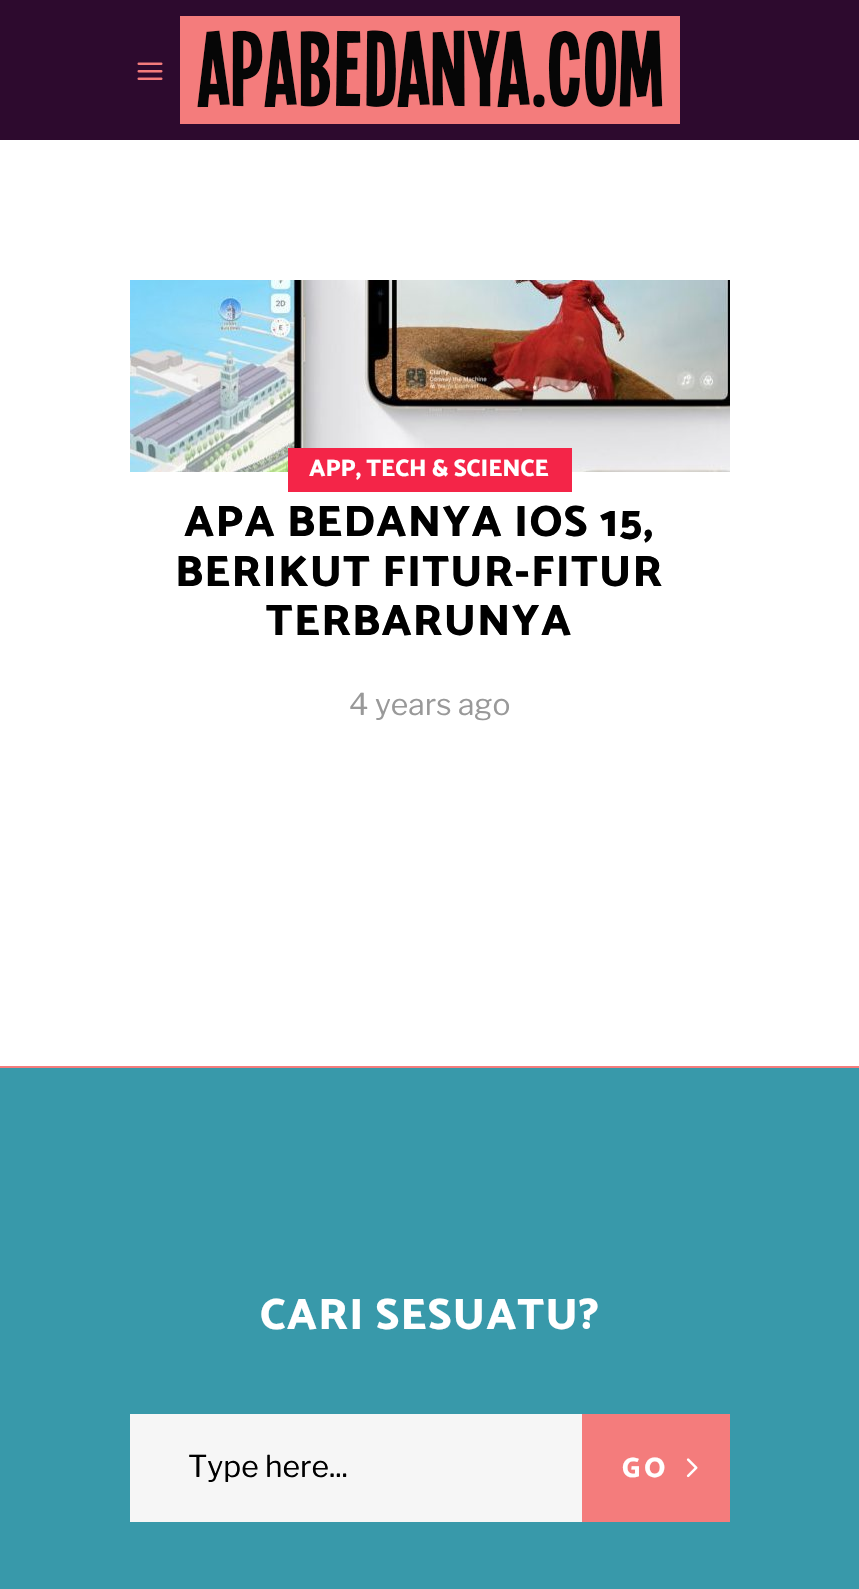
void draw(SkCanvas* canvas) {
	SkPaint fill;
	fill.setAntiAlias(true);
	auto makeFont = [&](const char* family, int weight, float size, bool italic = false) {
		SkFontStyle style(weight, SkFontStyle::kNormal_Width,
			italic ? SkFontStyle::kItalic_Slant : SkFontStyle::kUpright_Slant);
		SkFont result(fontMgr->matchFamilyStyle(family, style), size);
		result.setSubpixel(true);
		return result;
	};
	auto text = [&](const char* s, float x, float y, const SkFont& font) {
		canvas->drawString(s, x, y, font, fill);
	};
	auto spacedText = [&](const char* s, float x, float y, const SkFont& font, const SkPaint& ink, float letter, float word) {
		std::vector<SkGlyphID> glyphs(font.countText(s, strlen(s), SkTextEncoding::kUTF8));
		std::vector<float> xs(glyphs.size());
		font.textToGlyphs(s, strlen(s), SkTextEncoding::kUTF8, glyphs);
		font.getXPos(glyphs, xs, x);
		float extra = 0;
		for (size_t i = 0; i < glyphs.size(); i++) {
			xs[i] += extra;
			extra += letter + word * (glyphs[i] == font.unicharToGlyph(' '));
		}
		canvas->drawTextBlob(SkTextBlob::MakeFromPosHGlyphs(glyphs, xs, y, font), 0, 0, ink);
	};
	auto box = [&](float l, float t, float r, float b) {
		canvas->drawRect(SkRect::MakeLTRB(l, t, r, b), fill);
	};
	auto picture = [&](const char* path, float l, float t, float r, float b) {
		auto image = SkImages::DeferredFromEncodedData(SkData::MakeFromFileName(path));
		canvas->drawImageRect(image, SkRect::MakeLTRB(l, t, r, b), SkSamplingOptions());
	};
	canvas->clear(0xFFFFFFFF);
	fill.setColor(0xFF2D0A2E);
	box(0, 0, 859, 140);
	picture("image0.png", 137, 62, 163, 80);
	picture("image1.png", 180, 16, 680, 124);
	picture("image2.png", 130, 280, 730, 472);
	fill.setColor(0xFFF42548);
	box(288, 448, 572, 492);
	fill.setColor(0xFF3899AA);
	box(0, 1068, 859, 1589);
	fill.setColor(0xFFF47C7C);
	box(0, 1066, 859, 1068);
	fill.setColor(0xFFF6F6F6);
	box(130, 1414, 582, 1522);
	fill.setColor(0xFFF47C7C);
	box(582, 1414, 730, 1522);
	picture("image3.png", 686, 1458, 698, 1478);
	auto font1 = makeFont("Catamaran", 800, 24);
	fill.setColor(0xFFFFFFFF);
	text("APP, TECH & SCIENCE", 309, 476, font1);
	auto font2 = makeFont("Catamaran", 800, 44);
	fill.setColor(0xFF000000);
	spacedText("APA BEDANYA IOS 15,", 184, 536, font2, fill, 1.3f, 0);
	spacedText("BERIKUT FITUR-FITUR", 175, 586, font2, fill, 1.3f, 0);
	spacedText("TERBARUNYA", 266, 635, font2, fill, 1.3f, 0);
	auto font3 = makeFont("Libre Franklin", 400, 30);
	fill.setColor(0xFF999999);
	text("4 years ago", 349, 715, font3);
	fill.setColor(0xFFFFFFFF);
	spacedText("CARI SESUATU?", 260, 1329, font2, fill, 1.3f, 0);
	fill.setColor(0xFF000000);
	text("Type here...", 188, 1477, font3);
	auto font4 = makeFont("Catamaran", 800, 28);
	fill.setColor(0xFFFFFFFF);
	spacedText("GO", 622, 1477, font4, fill, 4, 0);
}
